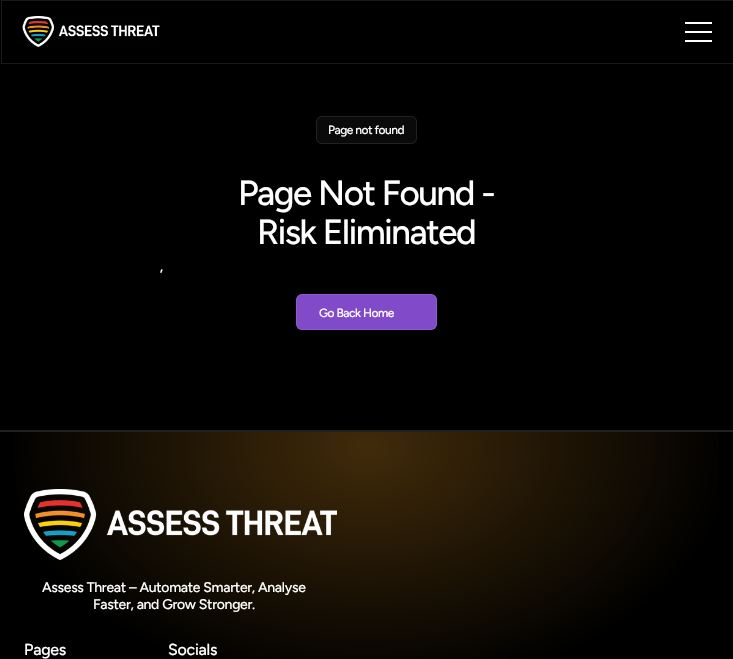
void draw(SkCanvas* canvas) {
	SkPaint fill;
	fill.setAntiAlias(true);
	auto makeFont = [&](const char* family, int weight, float size, bool italic = false) {
		SkFontStyle style(weight, SkFontStyle::kNormal_Width,
			italic ? SkFontStyle::kItalic_Slant : SkFontStyle::kUpright_Slant);
		SkFont result(fontMgr->matchFamilyStyle(family, style), size);
		result.setSubpixel(true);
		return result;
	};
	auto spacedText = [&](const char* s, float x, float y, const SkFont& font, const SkPaint& ink, float letter, float word) {
		std::vector<SkGlyphID> glyphs(font.countText(s, strlen(s), SkTextEncoding::kUTF8));
		std::vector<float> xs(glyphs.size());
		font.textToGlyphs(s, strlen(s), SkTextEncoding::kUTF8, glyphs);
		font.getXPos(glyphs, xs, x);
		float extra = 0;
		for (size_t i = 0; i < glyphs.size(); i++) {
			xs[i] += extra;
			extra += letter + word * (glyphs[i] == font.unicharToGlyph(' '));
		}
		canvas->drawTextBlob(SkTextBlob::MakeFromPosHGlyphs(glyphs, xs, y, font), 0, 0, ink);
	};
	auto box = [&](float l, float t, float r, float b) {
		canvas->drawRect(SkRect::MakeLTRB(l, t, r, b), fill);
	};
	auto roundBox = [&](float l, float t, float r, float b, float radius) {
		canvas->drawRoundRect(SkRect::MakeLTRB(l, t, r, b), radius, radius, fill);
	};
	auto picture = [&](const char* path, float l, float t, float r, float b) {
		auto image = SkImages::DeferredFromEncodedData(SkData::MakeFromFileName(path));
		canvas->drawImageRect(image, SkRect::MakeLTRB(l, t, r, b), SkSamplingOptions());
	};
	canvas->clear(0xFF000000);
	picture("image0.png", 22, 16, 160, 47);
	fill.setColor(0xFFFFFFFF);
	box(685, 22, 712, 24);
	box(685, 31, 712, 33);
	box(685, 40, 712, 42);
	fill.setStyle(SkPaint::kStroke_Style);
	fill.setStrokeWidth(1);
	fill.setColor(0xFF1A1A1A);
	canvas->drawRect(SkRect::MakeLTRB(1.5f, 0.5f, 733.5f, 63.5f), fill);
	fill.setStyle(SkPaint::kFill_Style);
	fill.setColor(0xFF0A0A0A);
	roundBox(316, 116, 417, 144, 6);
	fill.setStyle(SkPaint::kStroke_Style);
	fill.setColor(0xFF222222);
	canvas->drawRoundRect(SkRect::MakeLTRB(316.5f, 116.5f, 416.5f, 143.5f), 5.5f, 5.5f, fill);
	fill.setStyle(SkPaint::kFill_Style);
	fill.setColor(0xFF814AC8);
	roundBox(296, 294, 437, 330, 6);
	fill.setStyle(SkPaint::kStroke_Style);
	fill.setColor(0x1AFFFFFF);
	canvas->drawRoundRect(SkRect::MakeLTRB(296.5f, 294.5f, 436.5f, 329.5f), 5.5f, 5.5f, fill);
	fill.setStyle(SkPaint::kFill_Style);
	{
		const SkColor colors[] = {0xFF412B0A, 0xFF000000};
		const float stops[] = {0, 1};
		SkMatrix m = SkMatrix::Translate(367, 447).preScale(367, 246);
		fill.setShader(SkGradientShader::MakeRadial({0, 0}, 1, colors, stops, 2, SkTileMode::kClamp, 0, &m));
		fill.setAlpha(255);
	}
	box(15, 432, 719, 659);
	fill.setShader(nullptr);
	fill.setColor(0xFF222222);
	box(0, 430, 733, 432);
	picture("image1.png", 24, 489, 337, 560);
	auto font1 = makeFont("Figtree", 500, 12);
	fill.setColor(0xFFFFFFFF);
	spacedText("Page not found", 328, 134, font1, fill, -0.5f, 0);
	auto font2 = makeFont("Figtree", 500, 35);
	spacedText("Page Not Found -", 238, 205, font2, fill, -1.4f, 0);
	spacedText("Risk Eliminated", 257, 244, font2, fill, -1.4f, 0);
	auto font3 = makeFont("Figtree", 500, 15);
	spacedText("’", 160, 280, font3, fill, -1, 0);
	spacedText("Go Back Home", 319, 317, font1, fill, -0.5f, 0);
	auto font4 = makeFont("Figtree", 500, 14);
	spacedText("Assess Threat – Automate Smarter, Analyse", 42, 592, font4, fill, -0.3f, 0);
	spacedText("Faster, and Grow Stronger.", 93, 609, font4, fill, -0.3f, 0);
	auto font5 = makeFont("Figtree", 500, 16);
	spacedText("Pages", 24, 655, font5, fill, -0.25f, 0);
	spacedText("Socials", 168, 655, font5, fill, -0.25f, 0);
}
